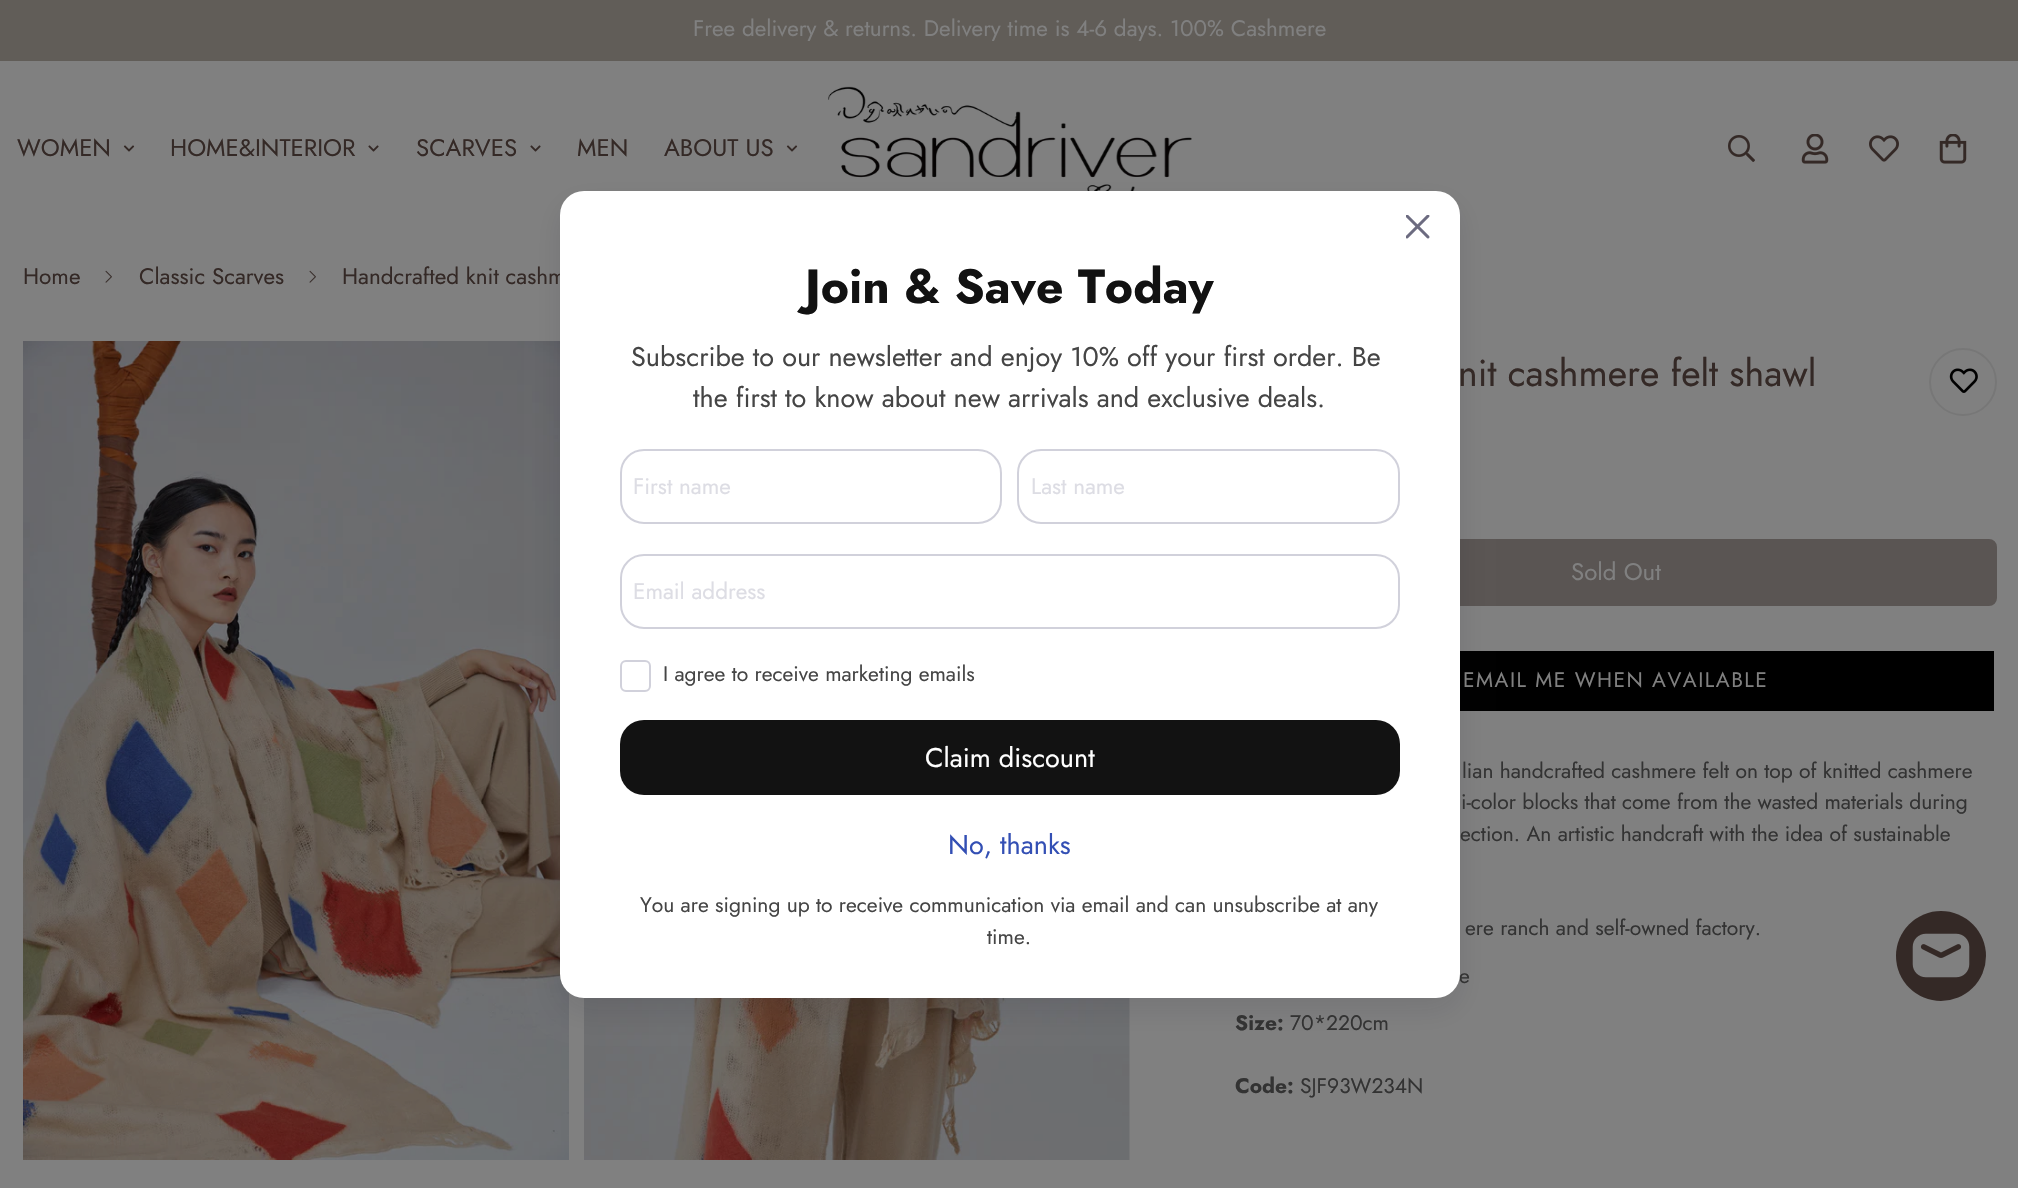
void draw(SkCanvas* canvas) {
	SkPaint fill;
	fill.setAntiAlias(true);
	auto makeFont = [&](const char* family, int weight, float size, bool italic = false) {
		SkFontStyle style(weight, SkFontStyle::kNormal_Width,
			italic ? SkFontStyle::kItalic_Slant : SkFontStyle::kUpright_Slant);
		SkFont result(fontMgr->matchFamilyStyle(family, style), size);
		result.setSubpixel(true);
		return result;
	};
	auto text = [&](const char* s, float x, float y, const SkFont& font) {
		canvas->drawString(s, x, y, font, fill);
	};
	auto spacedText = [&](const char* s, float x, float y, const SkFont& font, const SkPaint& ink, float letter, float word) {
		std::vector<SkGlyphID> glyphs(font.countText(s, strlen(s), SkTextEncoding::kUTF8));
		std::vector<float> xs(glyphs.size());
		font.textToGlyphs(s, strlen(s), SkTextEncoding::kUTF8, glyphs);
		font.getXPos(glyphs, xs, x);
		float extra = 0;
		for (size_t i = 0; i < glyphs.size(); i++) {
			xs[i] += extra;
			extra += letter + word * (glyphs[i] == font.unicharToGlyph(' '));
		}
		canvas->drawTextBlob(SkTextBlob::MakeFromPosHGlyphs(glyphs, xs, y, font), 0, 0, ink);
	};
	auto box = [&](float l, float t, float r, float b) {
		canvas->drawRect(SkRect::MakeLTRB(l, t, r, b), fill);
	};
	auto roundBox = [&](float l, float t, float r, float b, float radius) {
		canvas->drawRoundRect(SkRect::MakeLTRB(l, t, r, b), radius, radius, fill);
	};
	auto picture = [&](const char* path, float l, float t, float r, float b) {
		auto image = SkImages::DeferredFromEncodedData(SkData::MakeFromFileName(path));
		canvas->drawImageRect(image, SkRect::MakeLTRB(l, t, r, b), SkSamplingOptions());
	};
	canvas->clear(0xFF808080);
	fill.setColor(0xFF615D58);
	box(0, 0, 2018, 61);
	picture("image0.png", 123, 145, 135, 152);
	picture("image1.png", 368, 145, 379, 152);
	picture("image1.png", 530, 145, 541, 152);
	picture("image0.png", 786, 145, 798, 152);
	picture("image2.png", 828, 86, 1192, 191);
	picture("image3.png", 1728, 135, 1755, 162);
	picture("image4.png", 1801, 134, 1829, 164);
	picture("image5.png", 1869, 135, 1899, 162);
	picture("image6.png", 1939, 134, 1967, 164);
	picture("image9.png", 23, 341, 569, 1160);
	picture("image10.png", 584, 998, 1130, 1160);
	fill.setColor(0xFF5A5553);
	canvas->drawRoundRect(SkRect::MakeLTRB(1237, 540, 1996, 605), 7, 7, fill);
	fill.setStyle(SkPaint::kStroke_Style);
	fill.setStrokeWidth(2);
	canvas->drawRoundRect(SkRect::MakeLTRB(1237, 540, 1996, 605), 7, 7, fill);
	fill.setStyle(SkPaint::kFill_Style);
	fill.setColor(0xFF000000);
	canvas->drawRoundRect(SkRect::MakeLTRB(1237.5f, 649.5f, 1995.5f, 712.5f), 1.5f, 1.5f, fill);
	fill.setStyle(SkPaint::kStroke_Style);
	fill.setStrokeWidth(3);
	fill.setColor(0xFF808080);
	canvas->drawRoundRect(SkRect::MakeLTRB(1237.5f, 649.5f, 1995.5f, 712.5f), 1.5f, 1.5f, fill);
	fill.setStyle(SkPaint::kFill_Style);
	fill.setColor(0x1A121127);
	fill.setMaskFilter(SkMaskFilter::MakeBlur(kNormal_SkBlurStyle, 15));
	canvas->drawRoundRect(SkRect::MakeLTRB(560, 203, 1460, 1010), 24, 24, fill);
	fill.setMaskFilter(nullptr);
	picture("image8.png", 105, 270, 112, 283);
	picture("image8.png", 309, 270, 316, 283);
	fill.setStyle(SkPaint::kStroke_Style);
	fill.setStrokeWidth(2);
	fill.setColor(0xFF777777);
	canvas->drawCircle(1963, 382, 33, fill);
	picture("image11.png", 1949, 368, 1978, 393);
	fill.setStyle(SkPaint::kFill_Style);
	fill.setColor(0xFF342926);
	canvas->drawCircle(1941, 956, 45, fill);
	picture("image12.png", 1912, 933, 1970, 978);
	auto font1 = makeFont("Jost", 400, 22.5f);
	fill.setColor(0xFF808080);
	text("Free delivery & returns. Delivery time is 4-6 days. 100% Cashmere", 693, 36, font1);
	auto font2 = makeFont("Jost", 400, 24);
	fill.setColor(0xFF342926);
	text("WOMEN", 17, 156, font2);
	text("HOME&INTERIOR", 170, 156, font2);
	text("SCARVES", 416, 156, font2);
	text("MEN", 577, 156, font2);
	text("ABOUT US", 664, 156, font2);
	text("Home", 23, 284, font1);
	text("Classic Scarves", 139, 284, font1);
	text("Handcrafted knit cashm", 342, 284, font1);
	auto font3 = makeFont("Jost", 400, 37.5f);
	text("nit cashmere felt shawl", 1458, 386, font3);
	fill.setColor(0xFF808080);
	text("Sold Out", 1571, 580, font2);
	auto font4 = makeFont("Jost", 400, 21);
	spacedText("EMAIL ME WHEN AVAILABLE", 1463, 687, font4, fill, 1.5f, 0);
	fill.setColor(0xFF333333);
	text("lian handcrafted cashmere felt on top of knitted cashmere", 1462, 778, font4);
	text("i-color blocks that come from the wasted materials during", 1461, 809, font4);
	text("ection. An artistic handcraft with the idea of sustainable", 1460, 841, font4);
	text("ere ranch and self-owned factory.", 1465, 935, font4);
	text("e", 1459, 983, font4);
	fill.setColor(0xFFFFFFFF);
	roundBox(560, 191, 1460, 998, 24);
	picture("image7.png", 1406, 215, 1430, 239);
	fill.setColor(0xFF121212);
	roundBox(620, 720, 1400, 795, 24);
	auto font5 = makeFont("Jost", 400, 27);
	fill.setColor(0xFFFFFFFF);
	text("Claim discount", 925, 767, font5);
	fill.setStyle(SkPaint::kStroke_Style);
	fill.setColor(0xFFD1D1DB);
	canvas->drawRoundRect(SkRect::MakeLTRB(621, 661, 650, 691), 5, 5, fill);
	fill.setStyle(SkPaint::kFill_Style);
	fill.setColor(0xFF454545);
	text("I agree to receive marketing emails", 663, 681, font4);
	fill.setStyle(SkPaint::kStroke_Style);
	fill.setColor(0xFFD1D1DB);
	canvas->drawRoundRect(SkRect::MakeLTRB(621, 555, 1399, 628), 23, 23, fill);
	fill.setStyle(SkPaint::kFill_Style);
	fill.setColor(0xFFDDDDE4);
	text("Email address", 633, 599, font1);
	fill.setStyle(SkPaint::kStroke_Style);
	fill.setColor(0xFFD1D1DB);
	canvas->drawRoundRect(SkRect::MakeLTRB(1018, 450, 1399, 523), 23, 23, fill);
	fill.setStyle(SkPaint::kFill_Style);
	fill.setColor(0xFFDDDDE4);
	text("Last name", 1031, 494, font1);
	fill.setStyle(SkPaint::kStroke_Style);
	fill.setColor(0xFFD1D1DB);
	canvas->drawRoundRect(SkRect::MakeLTRB(621, 450, 1001, 523), 23, 23, fill);
	fill.setStyle(SkPaint::kFill_Style);
	fill.setColor(0xFFDDDDE4);
	text("First name", 633, 494, font1);
	fill.setColor(0xFF454545);
	text("time.", 987, 944, font4);
	text("You are signing up to receive communication via email and can unsubscribe at any", 640, 912, font4);
	fill.setColor(0xFF334FB4);
	text("No, thanks", 948, 854, font5);
	fill.setColor(0xFF454545);
	text("the first to know about new arrivals and exclusive deals.", 693, 407, font5);
	text("Subscribe to our newsletter and enjoy 10% off your first order. Be", 631, 366, font5);
	auto font6 = makeFont("Jost", 700, 48);
	fill.setColor(0xFF121212);
	text("Join & Save Today", 805, 303, font6);
	auto font7 = makeFont("Jost", 700, 21);
	fill.setColor(0xFF333333);
	text("Size:", 1235, 1030, font7);
	text("70*220cm", 1290, 1030, font4);
	text("Code:", 1235, 1093, font7);
	text("SJF93W234N", 1300, 1093, font4);
}
